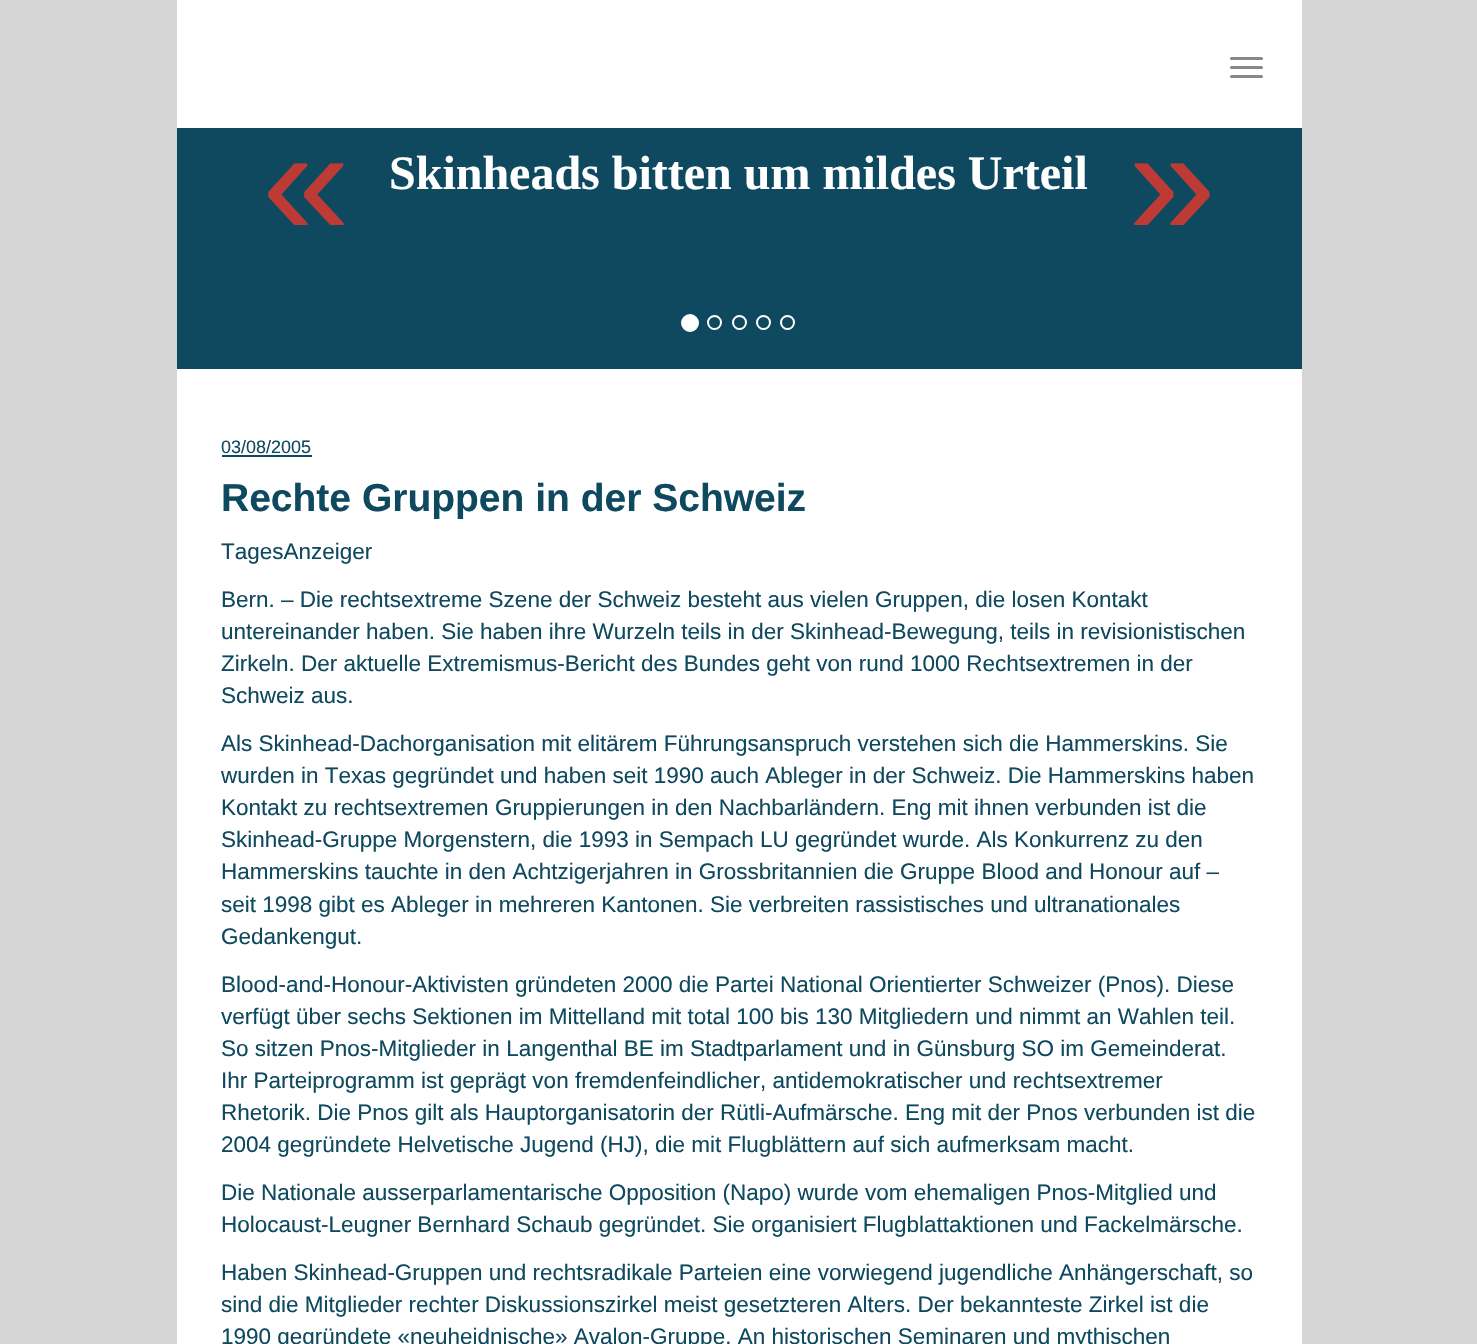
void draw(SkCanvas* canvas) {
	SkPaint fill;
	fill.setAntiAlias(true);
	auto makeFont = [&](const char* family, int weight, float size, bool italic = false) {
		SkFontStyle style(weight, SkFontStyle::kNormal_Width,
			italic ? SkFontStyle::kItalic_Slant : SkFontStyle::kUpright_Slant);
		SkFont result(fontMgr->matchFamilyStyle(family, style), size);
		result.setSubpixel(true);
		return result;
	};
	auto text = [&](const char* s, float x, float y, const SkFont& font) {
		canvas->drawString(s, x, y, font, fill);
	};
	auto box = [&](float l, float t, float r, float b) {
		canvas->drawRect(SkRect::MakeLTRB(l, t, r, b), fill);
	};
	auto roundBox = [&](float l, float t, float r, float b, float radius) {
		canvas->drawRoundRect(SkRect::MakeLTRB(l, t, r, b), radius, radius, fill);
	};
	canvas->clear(0xFFD5D5D5);
	fill.setColor(0xFFFFFFFF);
	box(177, 0, 1302, 128);
	fill.setColor(0xFF888888);
	roundBox(1230, 57, 1263, 60, 1.5f);
	roundBox(1230, 66, 1263, 69, 1.5f);
	roundBox(1230, 75, 1263, 78, 1.5f);
	fill.setColor(0xFF0F495F);
	box(177, 128, 1302, 369);
	fill.setColor(0xFFFFFFFF);
	canvas->drawCircle(690, 323, 8, fill);
	fill.setStyle(SkPaint::kStroke_Style);
	fill.setStrokeWidth(2);
	canvas->drawCircle(690, 323, 8, fill);
	canvas->drawCircle(714.5f, 322.5f, 6.5f, fill);
	canvas->drawCircle(739.5f, 322.5f, 6.5f, fill);
	canvas->drawCircle(763.5f, 322.5f, 6.5f, fill);
	canvas->drawCircle(787.5f, 322.5f, 6.5f, fill);
	fill.setStyle(SkPaint::kFill_Style);
	box(177, 369, 1302, 1344);
	fill.setColor(0xFF0F495F);
	box(222, 455, 312, 457);
	auto font1 = makeFont("Liberation Sans", 400, 158);
	fill.setColor(0xFFBD3B34);
	text("«", 262, 236, font1);
	auto font2 = makeFont("Liberation Serif", 700, 48);
	fill.setColor(0xFFFFFFFF);
	text("Skinheads bitten um mildes Urteil", 389, 189, font2);
	fill.setColor(0xFFBD3B34);
	text("»", 1128, 236, font1);
	auto font3 = makeFont("Liberation Sans", 400, 18);
	fill.setColor(0xFF0F495F);
	text("03/08/2005", 221, 453, font3);
	auto font4 = makeFont("Liberation Sans", 700, 39);
	text("Rechte Gruppen in der Schweiz", 221, 511, font4);
	auto font5 = makeFont("Liberation Sans", 400, 22.5f);
	text("TagesAnzeiger", 221, 559, font5);
	text("Bern. – Die rechtsextreme Szene der Schweiz besteht aus vielen Gruppen, die losen Kontakt", 221, 607, font5);
	text("untereinander haben. Sie haben ihre Wurzeln teils in der Skinhead-Bewegung, teils in revisionistischen", 221, 639, font5);
	text("Zirkeln. Der aktuelle Extremismus-Bericht des Bundes geht von rund 1000 Rechtsextremen in der", 221, 671, font5);
	text("Schweiz aus.", 221, 703, font5);
	text("Als Skinhead-Dachorganisation mit elitärem Führungsanspruch verstehen sich die Hammerskins. Sie", 221, 751, font5);
	text("wurden in Texas gegründet und haben seit 1990 auch Ableger in der Schweiz. Die Hammerskins haben", 221, 783, font5);
	text("Kontakt zu rechtsextremen Gruppierungen in den Nachbarländern. Eng mit ihnen verbunden ist die", 221, 815, font5);
	text("Skinhead-Gruppe Morgenstern, die 1993 in Sempach LU gegründet wurde. Als Konkurrenz zu den", 221, 847, font5);
	text("Hammerskins tauchte in den Achtzigerjahren in Grossbritannien die Gruppe Blood and Honour auf –", 221, 879, font5);
	text("seit 1998 gibt es Ableger in mehreren Kantonen. Sie verbreiten rassistisches und ultranationales", 221, 912, font5);
	text("Gedankengut.", 221, 944, font5);
	text("Blood-and-Honour-Aktivisten gründeten 2000 die Partei National Orientierter Schweizer (Pnos). Diese", 221, 992, font5);
	text("verfügt über sechs Sektionen im Mittelland mit total 100 bis 130 Mitgliedern und nimmt an Wahlen teil.", 221, 1024, font5);
	text("So sitzen Pnos-Mitglieder in Langenthal BE im Stadtparlament und in Günsburg SO im Gemeinderat.", 221, 1056, font5);
	text("Ihr Parteiprogramm ist geprägt von fremdenfeindlicher, antidemokratischer und rechtsextremer", 221, 1088, font5);
	text("Rhetorik. Die Pnos gilt als Hauptorganisatorin der Rütli-Aufmärsche. Eng mit der Pnos verbunden ist die", 221, 1120, font5);
	text("2004 gegründete Helvetische Jugend (HJ), die mit Flugblättern auf sich aufmerksam macht.", 221, 1152, font5);
	text("Die Nationale ausserparlamentarische Opposition (Napo) wurde vom ehemaligen Pnos-Mitglied und", 221, 1200, font5);
	text("Holocaust-Leugner Bernhard Schaub gegründet. Sie organisiert Flugblattaktionen und Fackelmärsche.", 221, 1232, font5);
	text("Haben Skinhead-Gruppen und rechtsradikale Parteien eine vorwiegend jugendliche Anhängerschaft, so", 221, 1280, font5);
	text("sind die Mitglieder rechter Diskussionszirkel meist gesetzteren Alters. Der bekannteste Zirkel ist die", 221, 1312, font5);
	text("1990 gegründete «neuheidnische» Avalon-Gruppe. An historischen Seminaren und mythischen", 221, 1344, font5);
}
